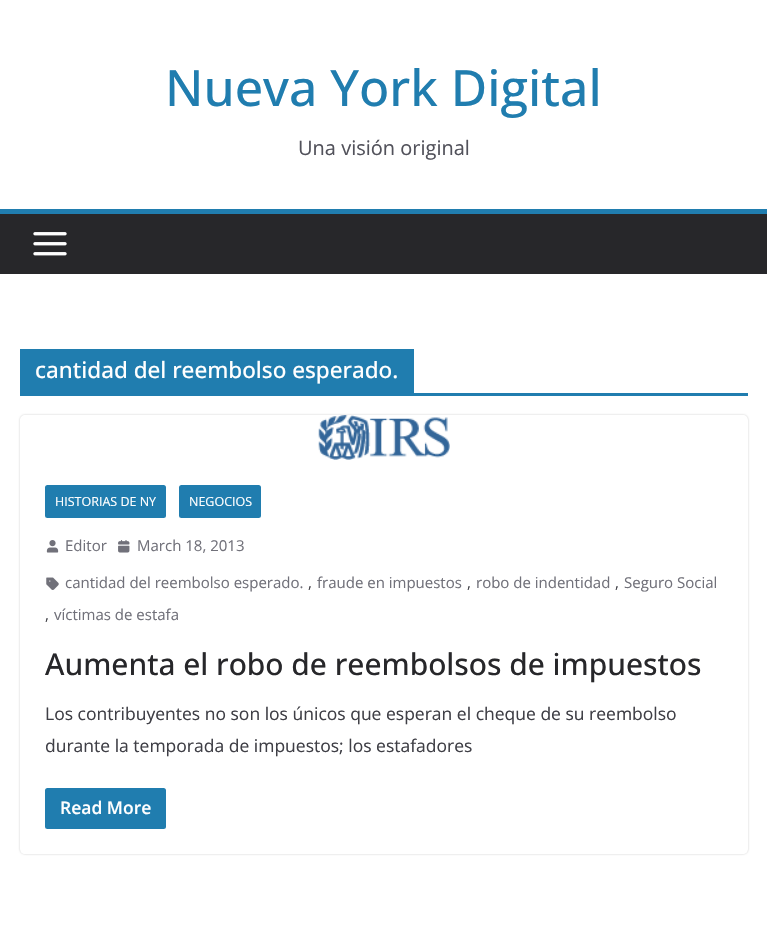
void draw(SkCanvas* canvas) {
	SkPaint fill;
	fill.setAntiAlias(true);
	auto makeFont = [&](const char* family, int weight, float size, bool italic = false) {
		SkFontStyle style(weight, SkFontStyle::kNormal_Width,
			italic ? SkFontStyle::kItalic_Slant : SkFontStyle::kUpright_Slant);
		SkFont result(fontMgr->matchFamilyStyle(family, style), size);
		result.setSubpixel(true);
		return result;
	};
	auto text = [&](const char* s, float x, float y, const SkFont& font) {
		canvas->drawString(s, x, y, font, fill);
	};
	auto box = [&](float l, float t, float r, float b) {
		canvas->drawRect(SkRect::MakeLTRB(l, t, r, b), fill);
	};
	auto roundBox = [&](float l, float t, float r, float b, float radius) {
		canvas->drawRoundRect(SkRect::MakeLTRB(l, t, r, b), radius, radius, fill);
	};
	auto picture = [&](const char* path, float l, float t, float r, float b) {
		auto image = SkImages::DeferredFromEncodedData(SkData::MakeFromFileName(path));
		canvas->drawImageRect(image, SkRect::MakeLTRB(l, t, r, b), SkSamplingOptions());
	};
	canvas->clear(0xFFFFFFFF);
	fill.setColor(0xFF27272A);
	box(0, 214, 767, 274);
	fill.setColor(0xFF207DAF);
	box(0, 209, 767, 214);
	picture("image0.png", 33, 232, 67, 256);
	box(20, 393, 748, 396);
	box(20, 349, 414, 393);
	canvas->save();
	canvas->clipPath(SkPathBuilder(SkPathFillType::kEvenOdd).moveTo(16, 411).lineTo(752, 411).lineTo(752, 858).lineTo(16, 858).close().moveTo(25, 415).lineTo(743, 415).cubicTo(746, 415, 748, 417, 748, 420).lineTo(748, 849).cubicTo(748, 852, 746, 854, 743, 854).lineTo(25, 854).cubicTo(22, 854, 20, 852, 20, 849).lineTo(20, 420).cubicTo(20, 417, 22, 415, 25, 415).close().detach(), true);
	fill.setColor(0x3D000000);
	fill.setMaskFilter(SkMaskFilter::MakeBlur(kNormal_SkBlurStyle, 1));
	canvas->drawRoundRect(SkRect::MakeLTRB(20, 415, 748, 854), 5, 5, fill);
	fill.setMaskFilter(nullptr);
	canvas->restore();
	picture("image1.png", 318, 415, 450, 460);
	fill.setColor(0xFF207DAF);
	roundBox(45, 485, 166, 518, 2.5f);
	roundBox(179, 485, 261, 518, 2.5f);
	picture("image2.png", 46, 540, 59, 553);
	picture("image3.png", 118, 540, 130, 553);
	picture("image4.png", 46, 577, 59, 590);
	roundBox(45, 788, 166, 829, 2.5f);
	auto font1 = makeFont("Open Sans", 500, 50);
	text("Nueva York Digital", 165, 106, font1);
	auto font2 = makeFont("Open Sans", 400, 20);
	fill.setColor(0xFF52525B);
	text("Una visión original", 298, 155, font2);
	auto font3 = makeFont("Open Sans", 500, 22.5f);
	fill.setColor(0xFFFFFFFF);
	text("cantidad del reembolso esperado.", 35, 378, font3);
	auto font4 = makeFont("Open Sans", 400, 12.5f);
	text("HISTORIAS DE NY", 55, 506, font4);
	text("NEGOCIOS", 189, 506, font4);
	auto font5 = makeFont("Open Sans", 400, 15);
	fill.setColor(0xFF71717A);
	text("Editor", 65, 551, font5);
	text("March 18, 2013", 137, 551, font5);
	text("cantidad del reembolso esperado.", 65, 588, font5);
	fill.setColor(0xFF3F3F46);
	text(",", 308, 588, font5);
	fill.setColor(0xFF71717A);
	text("fraude en impuestos", 317, 588, font5);
	fill.setColor(0xFF3F3F46);
	text(",", 467, 588, font5);
	fill.setColor(0xFF71717A);
	text("robo de indentidad", 476, 588, font5);
	fill.setColor(0xFF3F3F46);
	text(",", 615, 588, font5);
	fill.setColor(0xFF71717A);
	text("Seguro Social", 624, 588, font5);
	fill.setColor(0xFF3F3F46);
	text(",", 45, 620, font5);
	fill.setColor(0xFF71717A);
	text("víctimas de estafa", 54, 620, font5);
	auto font6 = makeFont("Open Sans", 500, 30);
	fill.setColor(0xFF27272A);
	text("Aumenta el robo de reembolsos de impuestos", 45, 675, font6);
	auto font7 = makeFont("Open Sans", 400, 17.5f);
	fill.setColor(0xFF3F3F46);
	text("Los contribuyentes no son los únicos que esperan el cheque de su reembolso", 45, 720, font7);
	text("durante la temporada de impuestos; los estafadores", 45, 752, font7);
	auto font8 = makeFont("Open Sans", 600, 17.5f);
	fill.setColor(0xFFFFFFFF);
	text("Read More", 60, 814, font8);
}
